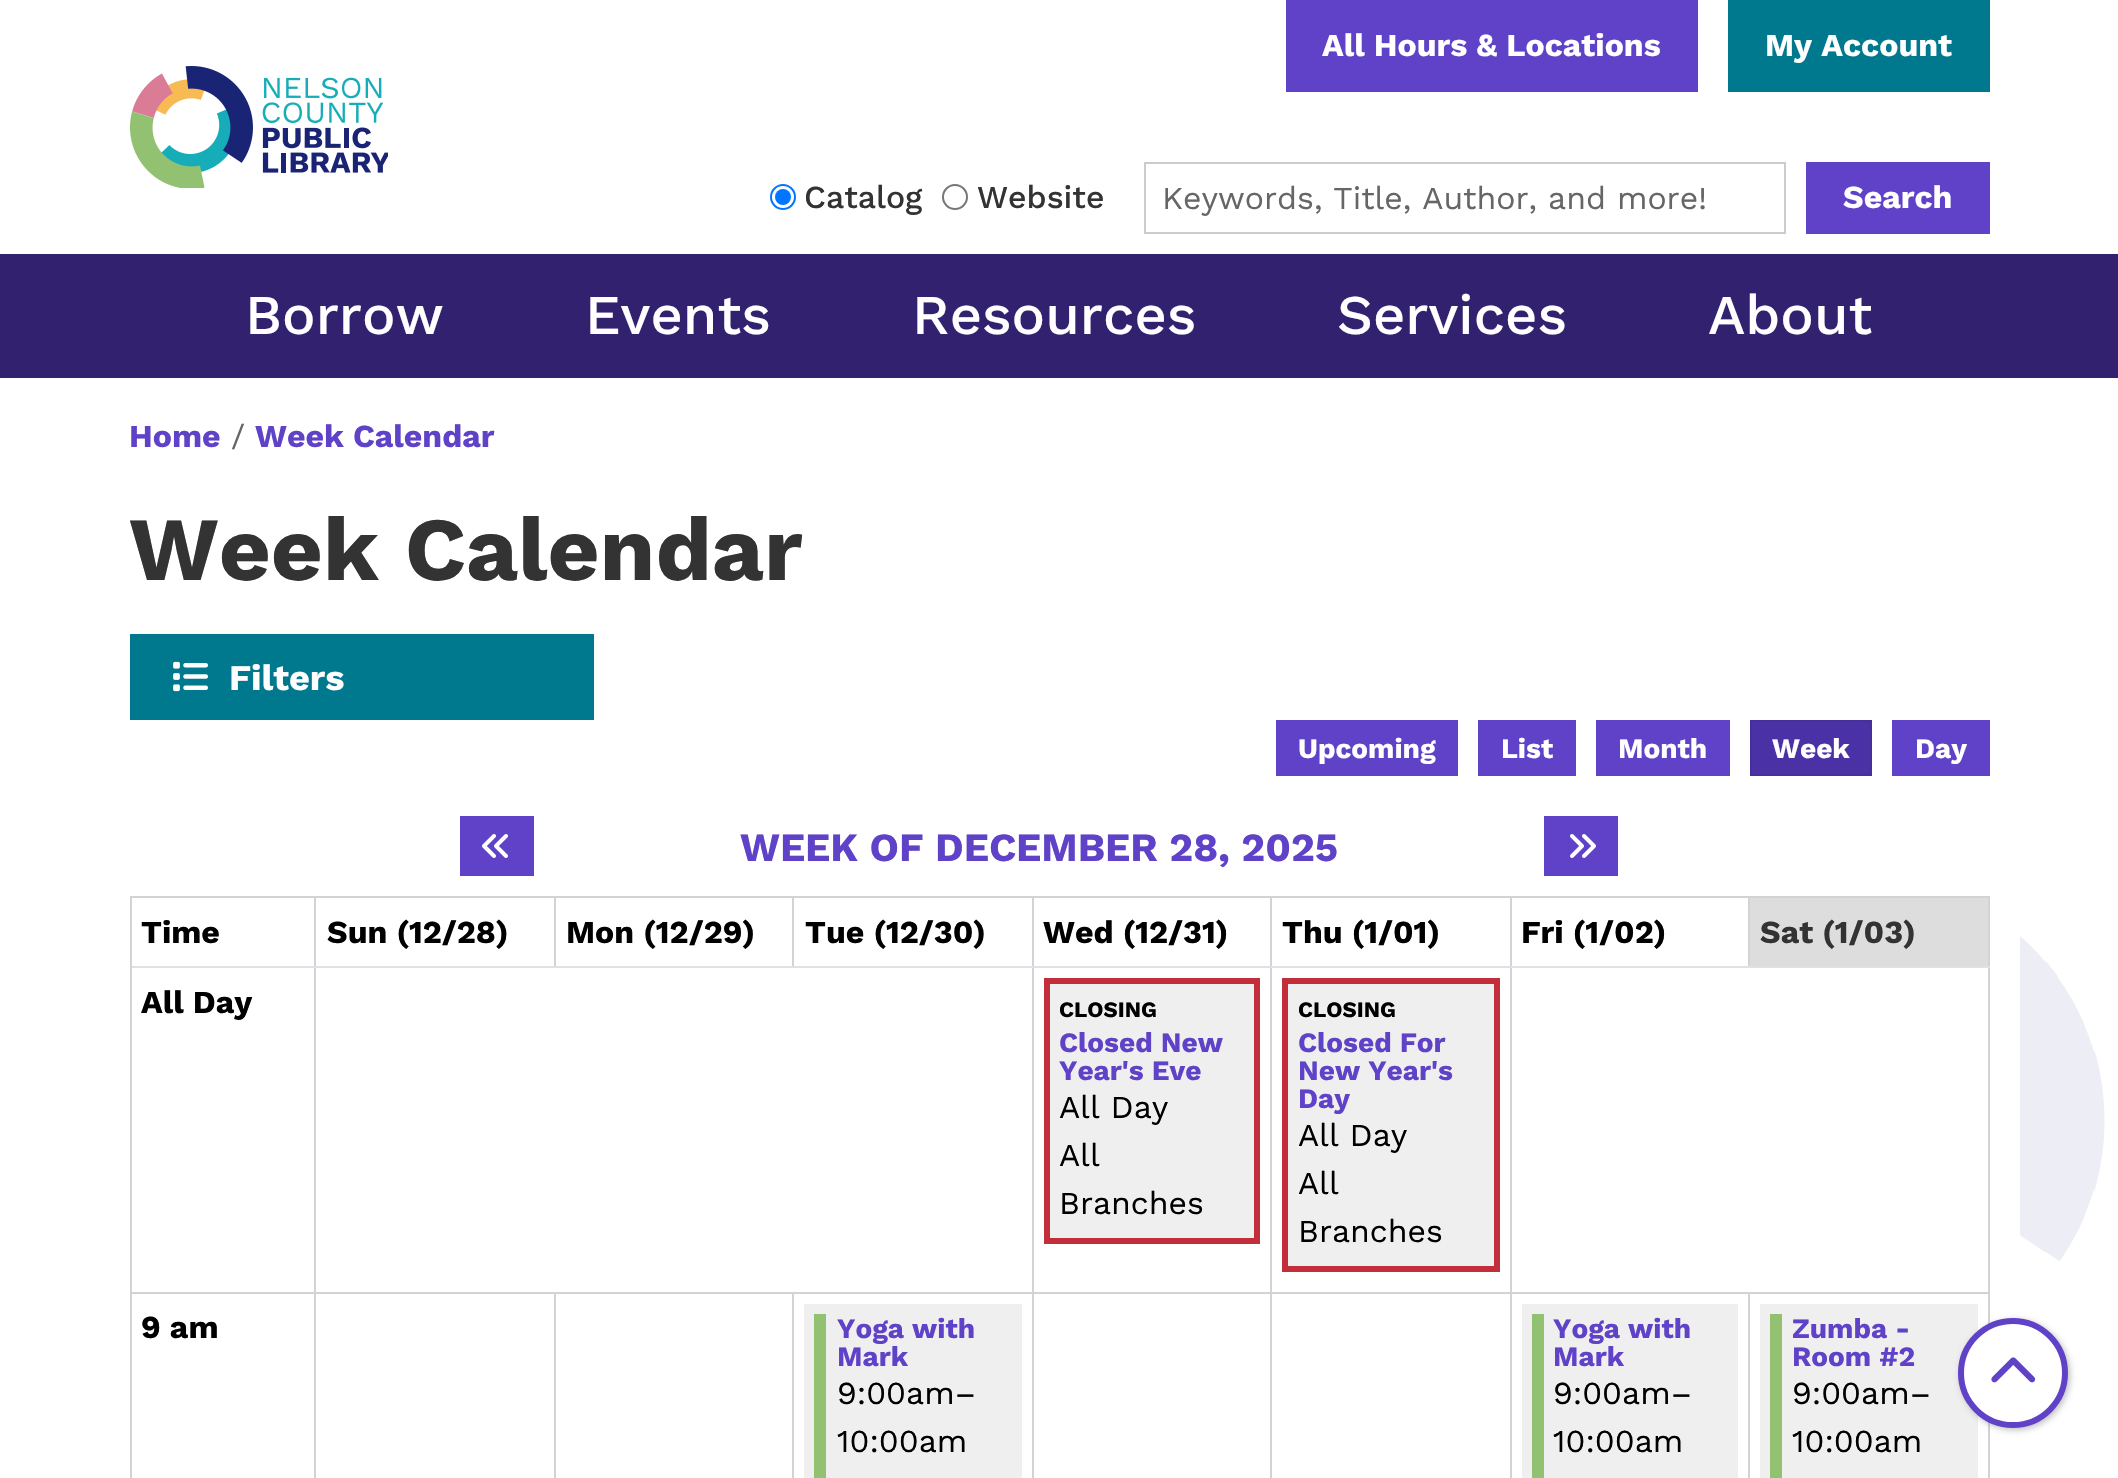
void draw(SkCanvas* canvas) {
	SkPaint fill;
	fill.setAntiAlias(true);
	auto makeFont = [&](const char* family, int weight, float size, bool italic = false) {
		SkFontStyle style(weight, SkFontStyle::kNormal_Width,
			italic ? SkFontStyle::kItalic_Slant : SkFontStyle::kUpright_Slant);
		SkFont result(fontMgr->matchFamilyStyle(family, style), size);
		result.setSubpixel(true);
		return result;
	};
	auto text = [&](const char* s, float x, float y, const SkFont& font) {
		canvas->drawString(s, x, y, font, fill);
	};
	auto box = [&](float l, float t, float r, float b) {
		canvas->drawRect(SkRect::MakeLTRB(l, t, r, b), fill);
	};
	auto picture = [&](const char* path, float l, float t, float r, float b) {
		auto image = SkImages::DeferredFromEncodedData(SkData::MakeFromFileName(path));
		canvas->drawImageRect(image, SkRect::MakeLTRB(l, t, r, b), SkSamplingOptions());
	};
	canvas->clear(0xFFFFFFFF);
	picture("image0.png", 130, 66, 388, 188);
	fill.setColor(0xFF5F42C7);
	box(1286, 0, 1698, 92);
	fill.setColor(0xFF00798F);
	box(1728, 0, 1990, 92);
	fill.setStyle(SkPaint::kStroke_Style);
	fill.setStrokeWidth(2);
	fill.setColor(0xFF0075FF);
	canvas->drawCircle(783, 197, 12, fill);
	fill.setStyle(SkPaint::kFill_Style);
	canvas->drawCircle(783, 197, 8, fill);
	fill.setStyle(SkPaint::kStroke_Style);
	fill.setColor(0xFF767676);
	canvas->drawCircle(955, 197, 12, fill);
	fill.setColor(0xFFCCCCCC);
	canvas->drawRect(SkRect::MakeLTRB(1145, 163, 1785, 233), fill);
	fill.setStyle(SkPaint::kFill_Style);
	fill.setColor(0xFF5F42C7);
	box(1806, 162, 1990, 234);
	fill.setColor(0xFF32216E);
	box(0, 254, 2118, 378);
	picture("image1.png", 2020, 936, 2105, 1261);
	fill.setColor(0xFF00798F);
	box(130, 634, 594, 720);
	picture("image2.png", 173, 661, 208, 692);
	fill.setColor(0xFF5F42C7);
	box(1276, 720, 1458, 776);
	box(1478, 720, 1576, 776);
	box(1596, 720, 1730, 776);
	fill.setColor(0xFF4A31A5);
	canvas->drawRect(SkRect::MakeLTRB(1751, 721, 1871, 775), fill);
	fill.setStyle(SkPaint::kStroke_Style);
	fill.setColor(0xFF462E9B);
	canvas->drawRect(SkRect::MakeLTRB(1751, 721, 1871, 775), fill);
	fill.setStyle(SkPaint::kFill_Style);
	fill.setColor(0xFF5F42C7);
	box(1892, 720, 1990, 776);
	box(460, 816, 534, 876);
	picture("image3.png", 482, 834, 508, 858);
	box(1544, 816, 1618, 876);
	picture("image4.png", 1570, 834, 1596, 858);
	fill.setColor(0xFFD2D3D5);
	box(1748, 896, 1990, 898);
	box(1748, 1292, 1990, 1294);
	box(1988, 966, 1990, 1478);
	box(1988, 896, 1990, 968);
	fill.setColor(0xFFDEE2E6);
	box(1748, 966, 1990, 968);
	fill.setColor(0xFFD2D3D5);
	box(1748, 896, 1750, 968);
	box(1510, 896, 1750, 898);
	box(1748, 1292, 1750, 1478);
	box(1510, 1292, 1750, 1294);
	box(1510, 1292, 1512, 1478);
	box(1270, 1292, 1512, 1294);
	box(1510, 966, 1512, 1294);
	fill.setColor(0xFFDEE2E6);
	box(1510, 966, 1750, 968);
	fill.setColor(0xFFD2D3D5);
	box(1510, 896, 1512, 968);
	box(1270, 896, 1512, 898);
	box(1270, 1292, 1272, 1478);
	box(1032, 1292, 1272, 1294);
	box(1270, 966, 1272, 1294);
	fill.setColor(0xFFDEE2E6);
	box(1270, 966, 1512, 968);
	fill.setColor(0xFFD2D3D5);
	box(1270, 896, 1272, 968);
	box(1032, 896, 1272, 898);
	box(1032, 1292, 1034, 1478);
	box(792, 1292, 1034, 1294);
	box(1032, 966, 1034, 1294);
	fill.setColor(0xFFDEE2E6);
	box(1032, 966, 1272, 968);
	fill.setColor(0xFFD2D3D5);
	box(1032, 896, 1034, 968);
	box(792, 896, 1034, 898);
	fill.setColor(0xFFDEE2E6);
	box(792, 966, 1034, 968);
	fill.setColor(0xFFD2D3D5);
	box(792, 896, 794, 968);
	box(554, 896, 794, 898);
	fill.setColor(0xFFDEE2E6);
	box(554, 966, 794, 968);
	fill.setColor(0xFFD2D3D5);
	box(554, 896, 556, 968);
	box(314, 896, 556, 898);
	box(792, 1292, 794, 1478);
	box(554, 1292, 794, 1294);
	box(554, 1292, 556, 1478);
	box(314, 1292, 556, 1294);
	box(314, 1292, 316, 1478);
	box(130, 1292, 316, 1294);
	box(314, 966, 316, 1294);
	fill.setColor(0xFFDEE2E6);
	box(314, 966, 556, 968);
	fill.setColor(0xFFD2D3D5);
	box(314, 896, 316, 968);
	box(130, 896, 316, 898);
	box(130, 966, 132, 1478);
	fill.setColor(0xFFDEE2E6);
	box(130, 966, 316, 968);
	fill.setColor(0xFFD2D3D5);
	box(130, 896, 132, 968);
	fill.setColor(0xFFDDDDDD);
	box(1750, 898, 1988, 966);
	fill.setColor(0xFFEFEFEF);
	canvas->drawRect(SkRect::MakeLTRB(1047, 981, 1257, 1241), fill);
	fill.setStyle(SkPaint::kStroke_Style);
	fill.setStrokeWidth(6);
	fill.setColor(0xFFC22F3B);
	canvas->drawRect(SkRect::MakeLTRB(1047, 981, 1257, 1241), fill);
	fill.setStyle(SkPaint::kFill_Style);
	fill.setColor(0xFFEFEFEF);
	canvas->drawRect(SkRect::MakeLTRB(1285, 981, 1497, 1269), fill);
	fill.setStyle(SkPaint::kStroke_Style);
	fill.setColor(0xFFC22F3B);
	canvas->drawRect(SkRect::MakeLTRB(1285, 981, 1497, 1269), fill);
	fill.setStyle(SkPaint::kFill_Style);
	fill.setColor(0xFFEFEFEF);
	box(804, 1304, 1022, 1478);
	fill.setColor(0xFF92C171);
	box(814, 1314, 826, 1478);
	fill.setColor(0xFFEFEFEF);
	box(1522, 1304, 1738, 1478);
	fill.setColor(0xFF92C171);
	box(1532, 1314, 1544, 1478);
	fill.setColor(0xFFEFEFEF);
	box(1760, 1304, 1978, 1478);
	fill.setColor(0xFF92C171);
	box(1770, 1314, 1782, 1478);
	fill.setColor(0x40000000);
	fill.setMaskFilter(SkMaskFilter::MakeBlur(kNormal_SkBlurStyle, 3));
	canvas->drawRoundRect(SkRect::MakeLTRB(1960, 1320, 2070, 1430), 55, 55, fill);
	fill.setMaskFilter(nullptr);
	fill.setColor(0xFFFFFFFF);
	canvas->drawCircle(2013, 1373, 52, fill);
	fill.setStyle(SkPaint::kStroke_Style);
	fill.setColor(0xFF5F42C7);
	canvas->drawCircle(2013, 1373, 52, fill);
	picture("image5.png", 1991, 1357, 2036, 1383);
	auto font1 = makeFont("Work Sans", 700, 32);
	fill.setStyle(SkPaint::kFill_Style);
	fill.setColor(0xFFFFFFFF);
	text("All Hours & Locations", 1322, 56, font1);
	text("My Account", 1765, 56, font1);
	auto font2 = makeFont("Work Sans", 500, 32);
	fill.setColor(0xFF333333);
	text("Catalog", 804, 208, font2);
	text("Website", 977, 208, font2);
	auto font3 = makeFont("Work Sans", 400, 32);
	fill.setColor(0xFF666666);
	text("Keywords, Title, Author, and more!", 1162, 209, font3);
	fill.setColor(0xFFFFFFFF);
	text("Search", 1843, 208, font1);
	auto font4 = makeFont("Work Sans", 500, 56);
	text("Borrow", 245, 334, font4);
	text("Events", 585, 334, font4);
	text("Resources", 912, 334, font4);
	text("Services", 1337, 334, font4);
	text("About", 1708, 334, font4);
	fill.setColor(0xFF5F42C7);
	text("Home", 129, 447, font1);
	fill.setColor(0xFF666666);
	text("/", 231, 447, font3);
	fill.setColor(0xFF5F42C7);
	text("Week Calendar", 255, 447, font1);
	auto font5 = makeFont("Work Sans", 700, 90);
	fill.setColor(0xFF333333);
	text("Week Calendar", 129, 580, font5);
	auto font6 = makeFont("Work Sans", 700, 36);
	fill.setColor(0xFFFFFFFF);
	text("Filters", 229, 690, font6);
	auto font7 = makeFont("Work Sans", 700, 28);
	text("Upcoming", 1298, 758, font7);
	text("List", 1501, 758, font7);
	text("Month", 1618, 758, font7);
	text("Week", 1772, 758, font7);
	text("Day", 1915, 758, font7);
	auto font8 = makeFont("Work Sans", 700, 40);
	fill.setColor(0xFF5F42C7);
	text("WEEK OF DECEMBER 28, 2025", 740, 861, font8);
	fill.setColor(0xFF000000);
	text("Time", 141, 943, font1);
	text("Sun (12/28)", 327, 943, font1);
	text("Mon (12/29)", 566, 943, font1);
	text("Tue (12/30)", 805, 943, font1);
	text("Wed (12/31)", 1043, 943, font1);
	text("Thu (1/01)", 1282, 943, font1);
	text("Fri (1/02)", 1521, 943, font1);
	fill.setColor(0xFF333333);
	text("Sat (1/03)", 1760, 943, font1);
	fill.setColor(0xFF000000);
	text("All Day", 141, 1013, font1);
	auto font9 = makeFont("Work Sans", 700, 22);
	text("CLOSING", 1059, 1017, font9);
	fill.setColor(0xFF5F42C7);
	text("Closed New", 1059, 1052, font7);
	text("Year's Eve", 1059, 1080, font7);
	fill.setColor(0xFF000000);
	text("All Day", 1059, 1118, font3);
	text("All", 1059, 1166, font3);
	text("Branches", 1059, 1214, font3);
	text("CLOSING", 1298, 1017, font9);
	fill.setColor(0xFF5F42C7);
	text("Closed For", 1298, 1052, font7);
	text("New Year's", 1298, 1080, font7);
	text("Day", 1298, 1108, font7);
	fill.setColor(0xFF000000);
	text("All Day", 1298, 1146, font3);
	text("All", 1298, 1194, font3);
	text("Branches", 1298, 1242, font3);
	text("9 am", 141, 1338, font1);
	fill.setColor(0xFF5F42C7);
	text("Yoga with", 837, 1338, font7);
	text("Mark", 837, 1366, font7);
	fill.setColor(0xFF000000);
	text("9:00am–", 837, 1404, font3);
	text("10:00am", 837, 1452, font3);
	fill.setColor(0xFF5F42C7);
	text("Yoga with", 1553, 1338, font7);
	text("Mark", 1553, 1366, font7);
	fill.setColor(0xFF000000);
	text("9:00am–", 1553, 1404, font3);
	text("10:00am", 1553, 1452, font3);
	fill.setColor(0xFF5F42C7);
	text("Zumba -", 1792, 1338, font7);
	text("Room #2", 1792, 1366, font7);
	fill.setColor(0xFF000000);
	text("9:00am–", 1792, 1404, font3);
	text("10:00am", 1792, 1452, font3);
}
